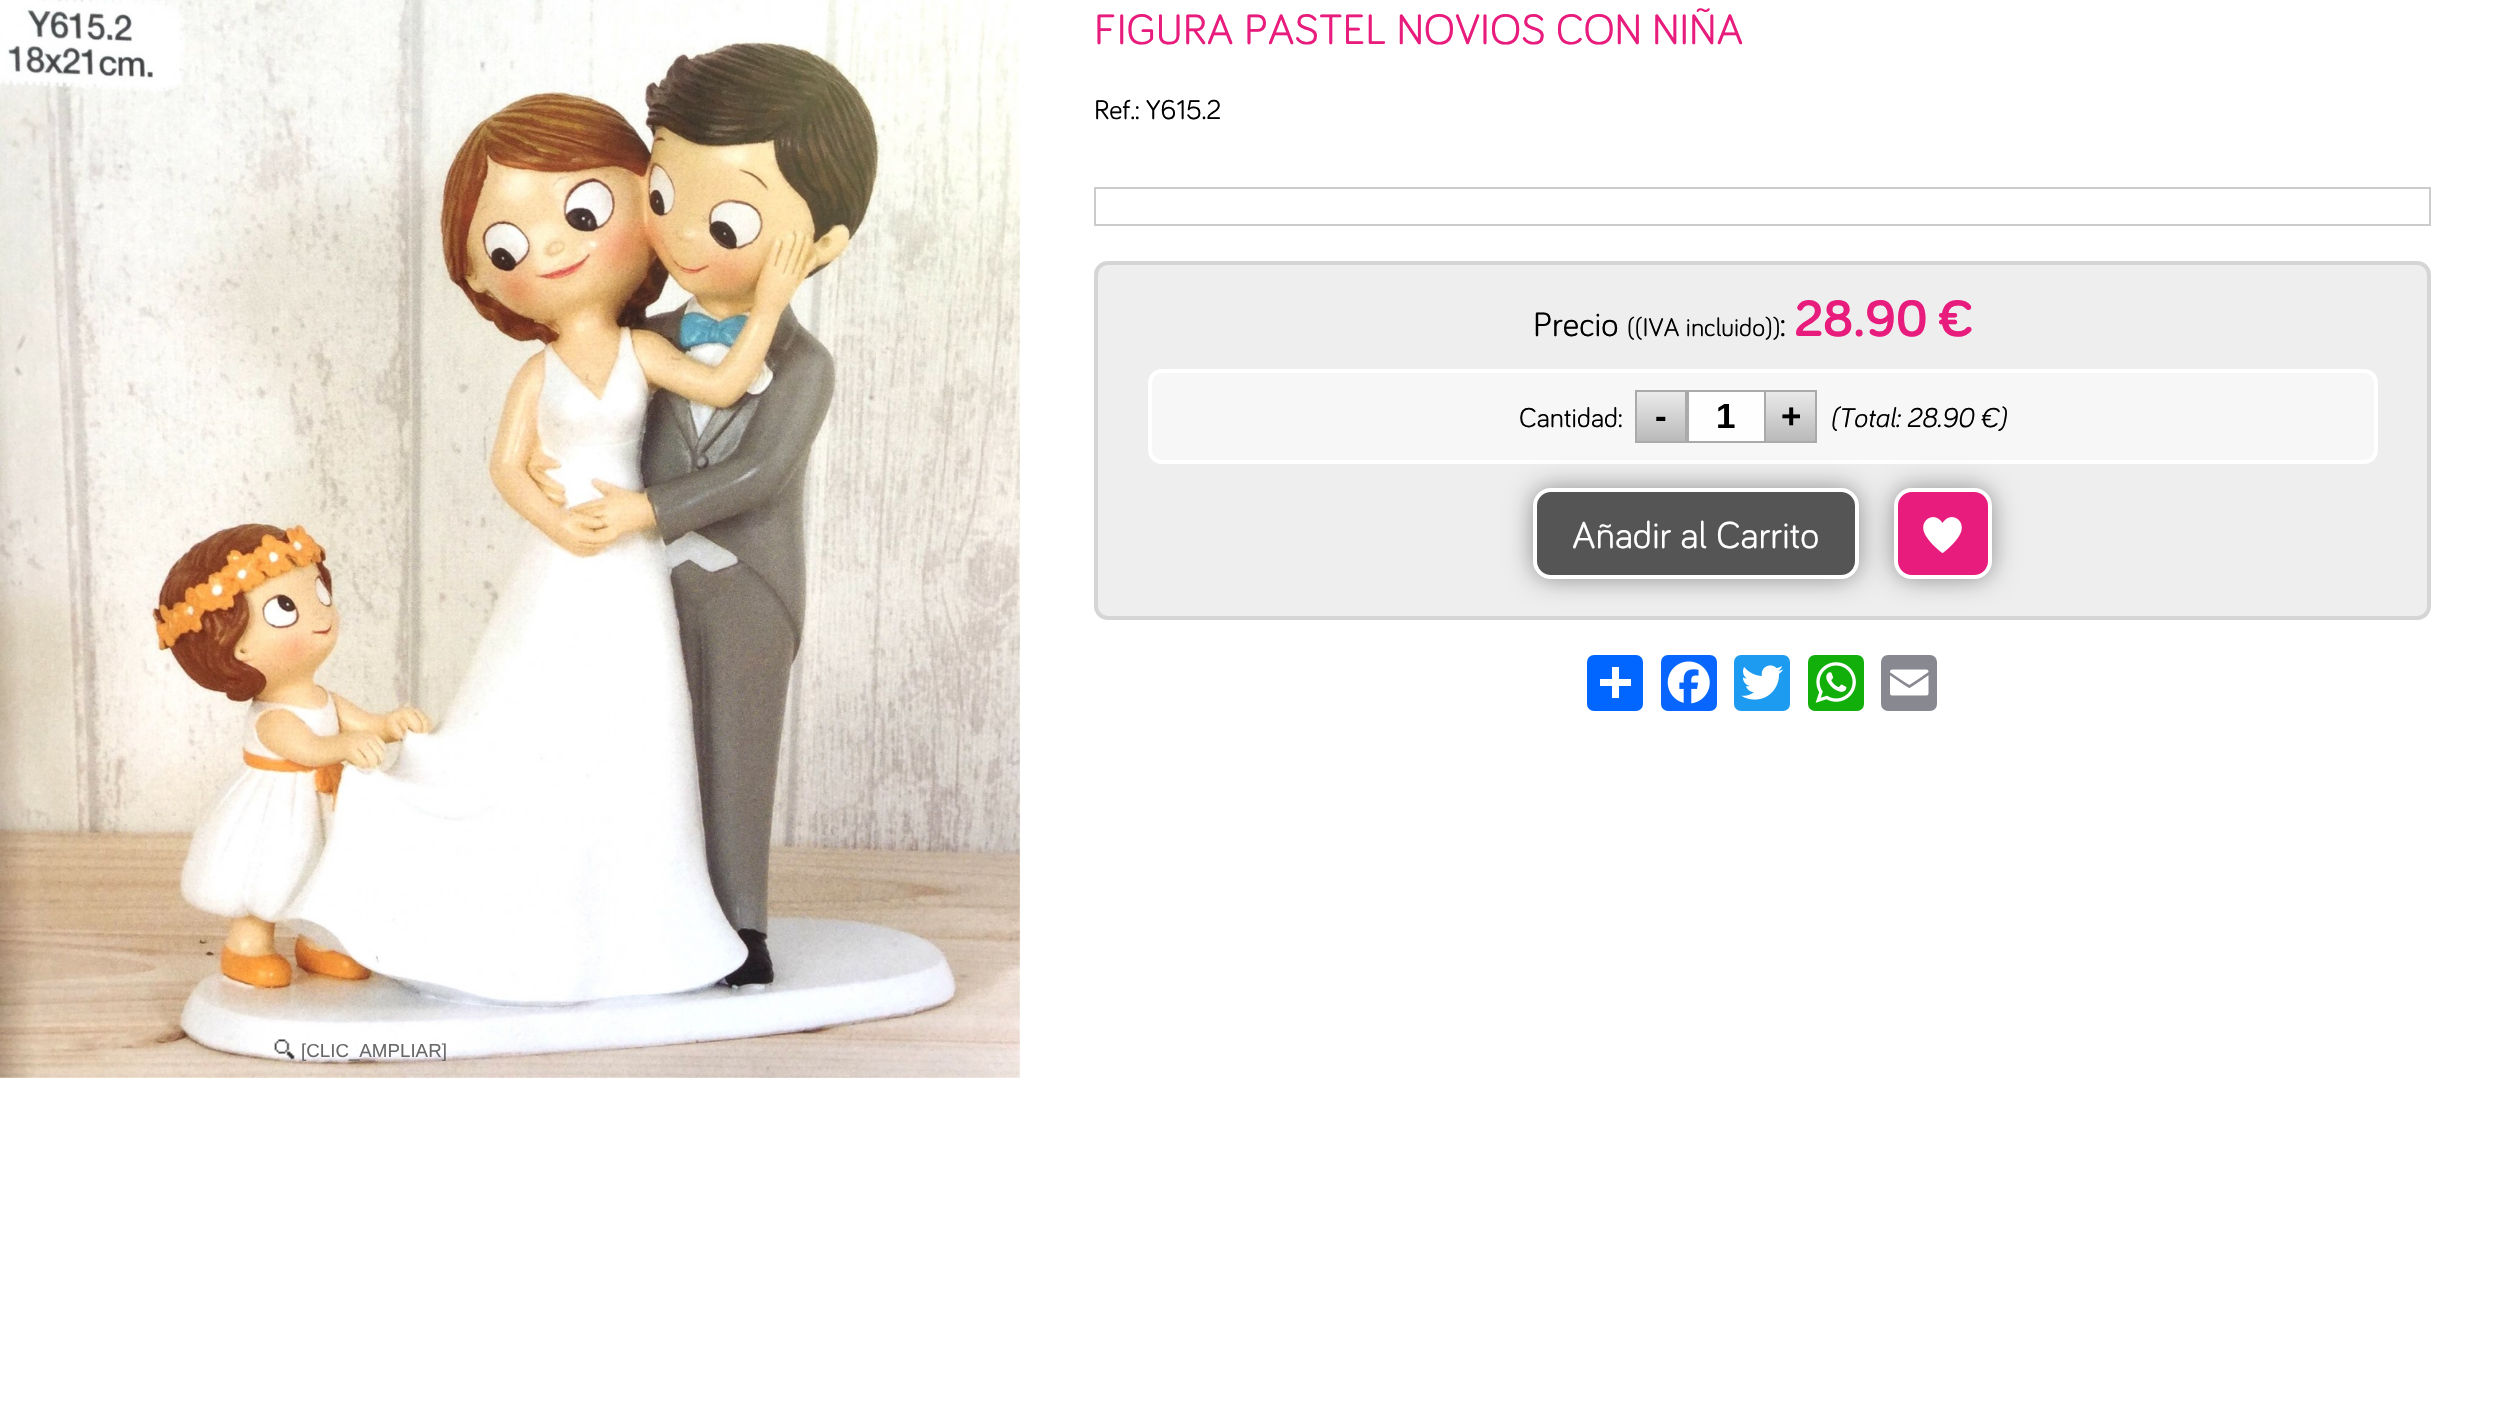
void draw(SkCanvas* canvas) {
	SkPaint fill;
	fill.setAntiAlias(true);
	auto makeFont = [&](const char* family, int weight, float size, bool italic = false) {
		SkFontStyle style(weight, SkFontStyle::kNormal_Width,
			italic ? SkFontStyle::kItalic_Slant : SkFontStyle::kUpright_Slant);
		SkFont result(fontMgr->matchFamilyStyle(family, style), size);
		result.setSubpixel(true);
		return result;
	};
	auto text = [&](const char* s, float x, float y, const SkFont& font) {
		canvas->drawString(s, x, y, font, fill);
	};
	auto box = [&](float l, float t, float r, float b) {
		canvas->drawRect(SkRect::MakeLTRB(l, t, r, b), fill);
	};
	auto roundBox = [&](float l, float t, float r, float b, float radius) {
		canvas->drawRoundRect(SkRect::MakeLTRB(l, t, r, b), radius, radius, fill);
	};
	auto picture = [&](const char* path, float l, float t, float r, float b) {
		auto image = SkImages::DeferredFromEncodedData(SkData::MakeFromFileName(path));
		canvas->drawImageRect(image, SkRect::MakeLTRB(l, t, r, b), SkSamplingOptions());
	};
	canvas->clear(0xFFFFFFFF);
	fill.setStyle(SkPaint::kStroke_Style);
	fill.setStrokeWidth(2);
	fill.setColor(0xFFCCCCCC);
	canvas->drawRect(SkRect::MakeLTRB(1095, 188, 2430, 225), fill);
	fill.setStyle(SkPaint::kFill_Style);
	fill.setColor(0xFFEEEEEE);
	roundBox(1094, 261, 2431, 620, 14);
	fill.setStyle(SkPaint::kStroke_Style);
	fill.setStrokeWidth(4);
	fill.setColor(0x1A000000);
	canvas->drawRoundRect(SkRect::MakeLTRB(1096, 263, 2429, 618), 12, 12, fill);
	fill.setStyle(SkPaint::kFill_Style);
	fill.setColor(0xFFF7F7F7);
	canvas->drawRoundRect(SkRect::MakeLTRB(1150, 371, 2376, 462), 12, 12, fill);
	fill.setStyle(SkPaint::kStroke_Style);
	fill.setColor(0xFFFFFFFF);
	canvas->drawRoundRect(SkRect::MakeLTRB(1150, 371, 2376, 462), 12, 12, fill);
	fill.setStyle(SkPaint::kFill_Style);
	{
		const SkColor colors[] = {0xFFEBEBEB, 0xFFB9B9B9};
		const float stops[] = {0, 1};
		const SkPoint ends[] = {{1661, 392}, {1661, 441}};
		fill.setShader(SkGradientShader::MakeLinear(ends, colors, stops, 2, SkTileMode::kClamp));
		fill.setAlpha(255);
	}
	box(1637, 392, 1685, 441);
	fill.setStyle(SkPaint::kStroke_Style);
	fill.setStrokeWidth(2);
	fill.setShader(nullptr);
	fill.setColor(0xFFAAAAAA);
	canvas->drawRect(SkRect::MakeLTRB(1636, 391, 1686, 442), fill);
	fill.setStyle(SkPaint::kFill_Style);
	fill.setColor(0xFFFEFEFE);
	canvas->drawRect(SkRect::MakeLTRB(1688, 391, 1765, 442), fill);
	fill.setStyle(SkPaint::kStroke_Style);
	fill.setColor(0xFFAAAAAA);
	canvas->drawRect(SkRect::MakeLTRB(1688, 391, 1765, 442), fill);
	fill.setStyle(SkPaint::kFill_Style);
	{
		const SkColor colors[] = {0x0D000000, 0x40000000};
		const float stops[] = {0, 1};
		const SkPoint ends[] = {{1790, 392}, {1790, 441}};
		fill.setShader(SkGradientShader::MakeLinear(ends, colors, stops, 2, SkTileMode::kClamp));
		fill.setAlpha(255);
	}
	box(1766, 392, 1815, 441);
	fill.setStyle(SkPaint::kStroke_Style);
	fill.setShader(nullptr);
	fill.setColor(0xFFAAAAAA);
	canvas->drawRect(SkRect::MakeLTRB(1765, 391, 1816, 442), fill);
	fill.setStyle(SkPaint::kFill_Style);
	fill.setColor(0x66000000);
	fill.setMaskFilter(SkMaskFilter::MakeBlur(kNormal_SkBlurStyle, 13));
	canvas->drawRoundRect(SkRect::MakeLTRB(1533, 488, 1859, 579), 18, 18, fill);
	fill.setMaskFilter(nullptr);
	fill.setColor(0xFF555555);
	canvas->drawRoundRect(SkRect::MakeLTRB(1535, 490, 1857, 577), 16, 16, fill);
	fill.setStyle(SkPaint::kStroke_Style);
	fill.setStrokeWidth(4);
	fill.setColor(0xFFFFFFFF);
	canvas->drawRoundRect(SkRect::MakeLTRB(1535, 490, 1857, 577), 16, 16, fill);
	fill.setStyle(SkPaint::kFill_Style);
	fill.setColor(0x66000000);
	fill.setMaskFilter(SkMaskFilter::MakeBlur(kNormal_SkBlurStyle, 13));
	canvas->drawRoundRect(SkRect::MakeLTRB(1894, 488, 1992, 579), 18, 18, fill);
	fill.setMaskFilter(nullptr);
	fill.setColor(0xFFE81C7C);
	canvas->drawRoundRect(SkRect::MakeLTRB(1896, 490, 1990, 577), 16, 16, fill);
	fill.setStyle(SkPaint::kStroke_Style);
	fill.setColor(0xFFFFFFFF);
	canvas->drawRoundRect(SkRect::MakeLTRB(1896, 490, 1990, 577), 16, 16, fill);
	picture("image0.png", 1923, 517, 1962, 553);
	fill.setStyle(SkPaint::kFill_Style);
	fill.setColor(0xFF0166FF);
	roundBox(1587, 655, 1643, 711, 7);
	fill.setColor(0xFFFFFFFF);
	box(1612, 667, 1619, 698);
	box(1600, 679, 1631, 686);
	fill.setColor(0xFF0866FF);
	roundBox(1661, 655, 1717, 711, 7);
	picture("image1.png", 1667, 661, 1710, 704);
	fill.setColor(0xFF1D9BF0);
	roundBox(1734, 655, 1790, 711, 7);
	picture("image2.png", 1741, 665, 1784, 700);
	fill.setColor(0xFF12AF0A);
	roundBox(1808, 655, 1864, 711, 7);
	picture("image3.png", 1815, 662, 1856, 703);
	fill.setColor(0xFF888990);
	roundBox(1881, 655, 1937, 711, 7);
	picture("image4.png", 1890, 669, 1929, 696);
	picture("image5.png", 0, 0, 1021, 1078);
	picture("image6.png", 274, 1039, 295, 1060);
	auto font1 = makeFont("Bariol", 400, 43.75f);
	fill.setColor(0xFFE81C7C);
	text("FIGURA PASTEL NOVIOS CON NIÑA", 1094, 44, font1);
	auto font2 = makeFont("Bariol", 400, 28);
	fill.setColor(0xFF000000);
	text("Ref.: Y615.2", 1094, 119, font2);
	auto font3 = makeFont("Bariol", 400, 35);
	text("Precio", 1533, 336, font3);
	auto font4 = makeFont("Bariol", 400, 26.25f);
	text("((IVA incluido))", 1627, 336, font4);
	text(":", 1780, 336, font3);
	auto font5 = makeFont("Bariol", 700, 52.5f);
	fill.setColor(0xFFE81C7C);
	text("28.90 €", 1794, 336, font5);
	fill.setColor(0xFF000000);
	text("Cantidad:", 1519, 427, font2);
	auto font6 = makeFont("Liberation Sans", 700, 35);
	text("-", 1655, 428, font6);
	text("1", 1716, 428, font6);
	text("+", 1781, 428, font6);
	auto font7 = makeFont("Bariol", 400, 28, true);
	text("(Total: 28.90 €)", 1830, 427, font7);
	auto font8 = makeFont("Bariol", 400, 38.5f);
	fill.setColor(0xFFFFFFFF);
	text("Añadir al Carrito", 1572, 548, font8);
	auto font9 = makeFont("Liberation Sans", 400, 18.75f);
	fill.setColor(0xFF686868);
	text("[CLIC_AMPLIAR]", 301, 1057, font9);
}
